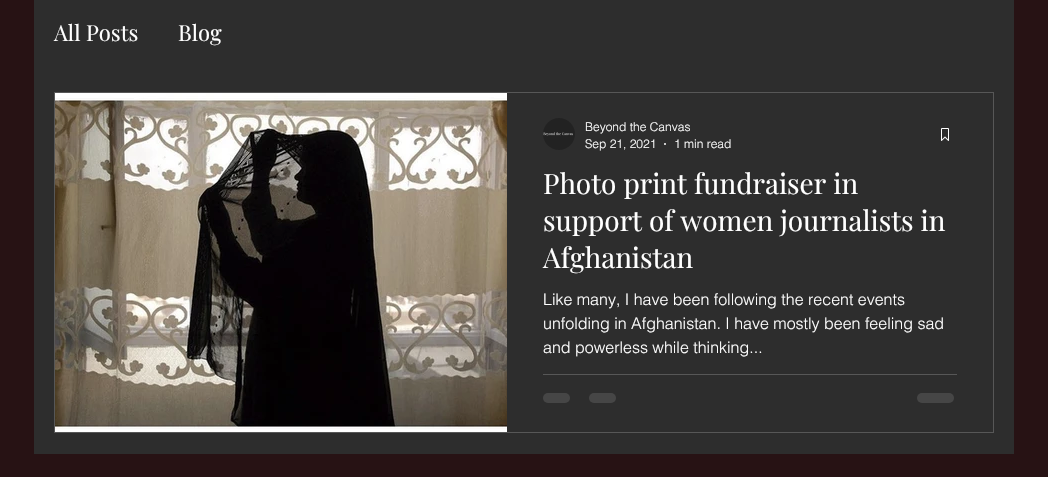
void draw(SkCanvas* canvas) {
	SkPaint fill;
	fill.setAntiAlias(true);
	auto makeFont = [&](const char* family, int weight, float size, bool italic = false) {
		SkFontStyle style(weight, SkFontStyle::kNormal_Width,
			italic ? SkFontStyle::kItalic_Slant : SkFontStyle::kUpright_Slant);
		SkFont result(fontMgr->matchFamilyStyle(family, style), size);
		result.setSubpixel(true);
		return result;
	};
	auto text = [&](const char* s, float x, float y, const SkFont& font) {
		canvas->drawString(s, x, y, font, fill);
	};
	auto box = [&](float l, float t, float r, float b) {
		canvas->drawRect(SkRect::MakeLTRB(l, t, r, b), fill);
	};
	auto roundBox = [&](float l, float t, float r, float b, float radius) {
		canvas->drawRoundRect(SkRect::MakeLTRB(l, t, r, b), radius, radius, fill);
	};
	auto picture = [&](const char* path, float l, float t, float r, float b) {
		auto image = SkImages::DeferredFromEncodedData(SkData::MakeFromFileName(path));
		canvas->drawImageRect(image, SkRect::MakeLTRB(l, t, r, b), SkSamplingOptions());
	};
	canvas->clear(0xFF271214);
	fill.setColor(0xFF2D2D2D);
	box(34, 0, 1014, 454);
	fill.setStyle(SkPaint::kStroke_Style);
	fill.setStrokeWidth(1);
	fill.setColor(0xFF575757);
	canvas->drawRect(SkRect::MakeLTRB(54.5f, 92.5f, 993.5f, 432.5f), fill);
	picture("image0.png", 55, 93, 507, 432);
	picture("image1.png", 543, 118, 575, 150);
	fill.setStyle(SkPaint::kFill_Style);
	fill.setColor(0xFFFFFFFF);
	canvas->drawCircle(665, 144, 1, fill);
	picture("image2.png", 941, 128, 949, 141);
	fill.setColor(0xFF575757);
	box(543, 374, 957, 375);
	fill.setColor(0xFF464646);
	roundBox(543, 393, 570, 403, 5);
	roundBox(589, 393, 616, 403, 5);
	roundBox(917, 393, 954, 403, 5);
	auto font1 = makeFont("Playfair Display", 400, 22);
	fill.setColor(0xFFFFFFFF);
	text("All Posts", 54, 41, font1);
	text("Blog", 178, 41, font1);
	auto font2 = makeFont("helvetica", 300, 12);
	text("Beyond the Canvas", 585, 131, font2);
	text("Sep 21, 2021", 585, 148, font2);
	text("1 min read", 674, 148, font2);
	auto font3 = makeFont("Playfair Display", 400, 28);
	text("Photo print fundraiser in", 543, 194, font3);
	text("support of women journalists in", 543, 231, font3);
	text("Afghanistan", 543, 268, font3);
	auto font4 = makeFont("helvetica", 300, 16);
	text("Like many, I have been following the recent events", 543, 305, font4);
	text("unfolding in Afghanistan. I have mostly been feeling sad", 543, 329, font4);
	text("and powerless while thinking...", 543, 353, font4);
}
